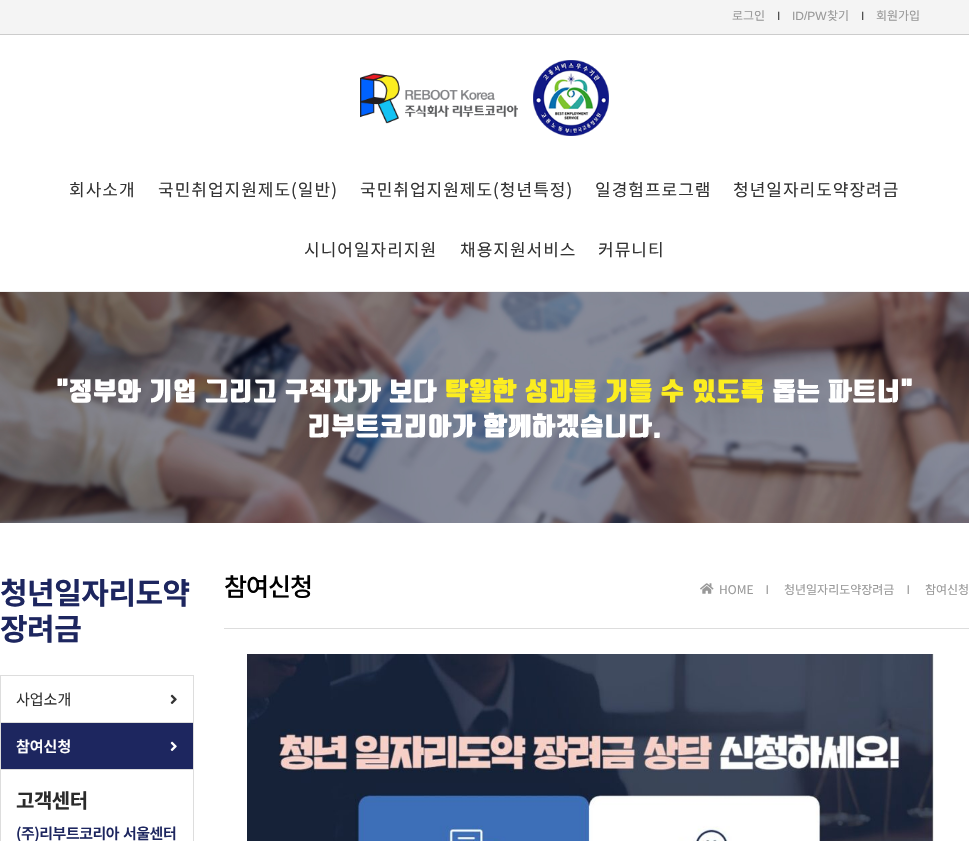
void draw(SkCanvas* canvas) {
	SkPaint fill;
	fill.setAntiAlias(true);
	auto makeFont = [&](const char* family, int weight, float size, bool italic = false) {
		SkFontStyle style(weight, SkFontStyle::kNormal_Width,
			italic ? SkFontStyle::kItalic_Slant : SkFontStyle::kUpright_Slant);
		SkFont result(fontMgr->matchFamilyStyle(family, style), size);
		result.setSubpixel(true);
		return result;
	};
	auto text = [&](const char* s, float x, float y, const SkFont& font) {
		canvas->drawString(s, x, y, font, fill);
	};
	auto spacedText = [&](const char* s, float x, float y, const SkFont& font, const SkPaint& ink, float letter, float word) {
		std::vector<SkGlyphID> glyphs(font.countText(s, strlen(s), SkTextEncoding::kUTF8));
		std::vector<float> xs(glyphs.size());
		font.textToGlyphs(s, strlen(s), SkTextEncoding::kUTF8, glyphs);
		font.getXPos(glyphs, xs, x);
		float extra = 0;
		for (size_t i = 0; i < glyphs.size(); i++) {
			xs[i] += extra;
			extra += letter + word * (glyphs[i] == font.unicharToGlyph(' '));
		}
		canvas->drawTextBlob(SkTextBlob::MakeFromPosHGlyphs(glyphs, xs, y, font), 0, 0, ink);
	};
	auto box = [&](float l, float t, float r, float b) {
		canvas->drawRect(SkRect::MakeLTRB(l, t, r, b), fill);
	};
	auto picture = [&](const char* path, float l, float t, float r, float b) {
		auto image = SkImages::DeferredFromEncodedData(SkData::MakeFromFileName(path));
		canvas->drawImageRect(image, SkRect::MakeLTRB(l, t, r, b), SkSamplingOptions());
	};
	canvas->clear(0xFFFFFFFF);
	fill.setColor(0xFFF4F4F4);
	box(0, 0, 969, 34);
	fill.setColor(0xFFCCCCCC);
	box(0, 34, 969, 35);
	fill.setColor(0xFFF1F1F1);
	box(0, 291, 969, 292);
	picture("image0.png", 360, 60, 609, 136);
	picture("image1.png", 0, 292, 969, 523);
	picture("image2.png", 57, 377, 912, 438);
	fill.setStyle(SkPaint::kStroke_Style);
	fill.setStrokeWidth(1);
	fill.setColor(0xFFDDDDDD);
	canvas->drawRect(SkRect::MakeLTRB(0.5f, 675.5f, 193.5f, 722.5f), fill);
	picture("image3.png", 170, 694, 177, 704);
	fill.setStyle(SkPaint::kFill_Style);
	fill.setColor(0xFF1D265F);
	box(1, 723, 193, 769);
	fill.setColor(0xFFDDDDDD);
	box(193, 723, 194, 841);
	box(0, 769, 194, 770);
	box(0, 723, 1, 841);
	picture("image4.png", 170, 741, 177, 751);
	box(224, 628, 969, 629);
	picture("image5.png", 700, 583, 714, 594);
	picture("image6.png", 247, 654, 934, 841);
	auto font1 = makeFont("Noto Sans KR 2", 400, 12);
	fill.setColor(0xFF999999);
	text("로그인", 732, 20, font1);
	auto font2 = makeFont("Liberation Sans", 400, 12);
	fill.setColor(0xFF444444);
	text("I", 777, 20, font2);
	fill.setColor(0xFF999999);
	text("ID/PW", 792, 20, font2);
	text("찾기", 827, 20, font1);
	fill.setColor(0xFF444444);
	text("I", 861, 20, font2);
	fill.setColor(0xFF999999);
	text("회원가입", 876, 20, font1);
	auto font3 = makeFont("Noto Sans KR 2", 400, 17);
	fill.setColor(0xFF333333);
	spacedText("회사소개", 69, 196, font3, fill, 1, 0);
	spacedText("국민취업지원제도(일반)", 158, 196, font3, fill, 1, 0);
	spacedText("국민취업지원제도(청년특정)", 360, 196, font3, fill, 1, 0);
	spacedText("일경험프로그램", 595, 196, font3, fill, 1, 0);
	spacedText("청년일자리도약장려금", 733, 196, font3, fill, 1, 0);
	spacedText("시니어일자리지원", 304, 256, font3, fill, 1, 0);
	spacedText("채용지원서비스", 460, 256, font3, fill, 1, 0);
	spacedText("커뮤니티", 598, 256, font3, fill, 1, 0);
	auto font4 = makeFont("Noto Sans KR", 700, 30);
	fill.setColor(0xFF1D265F);
	spacedText("청년일자리도약", 0, 604, font4, fill, -0.5f, 0);
	spacedText("장려금", 0, 640, font4, fill, -0.5f, 0);
	auto font5 = makeFont("Noto Sans KR", 400, 15);
	fill.setColor(0xFF333333);
	text("사업소개", 16, 705, font5);
	auto font6 = makeFont("Noto Sans KR", 600, 15);
	fill.setColor(0xFFFFFFFF);
	text("참여신청", 16, 752, font6);
	auto font7 = makeFont("Noto Sans KR", 700, 20);
	fill.setColor(0xFF2B2B2B);
	spacedText("고객센터", 16, 808, font7, fill, -0.5f, 0);
	fill.setColor(0xFF1D265F);
	spacedText("(주)리부트코리아 서울센터", 16, 839, font6, fill, -0.5f, 1);
	auto font8 = makeFont("Noto Sans KR", 500, 25);
	fill.setColor(0xFF000000);
	spacedText("참여신청", 224, 596, font8, fill, -1, 0);
	auto font9 = makeFont("Noto Sans KR", 400, 12);
	fill.setColor(0xFF999999);
	text("HOME　I", 719, 594, font9);
	text("청년일자리도약장려금　I", 784, 594, font9);
	text("참여신청", 925, 594, font9);
}
